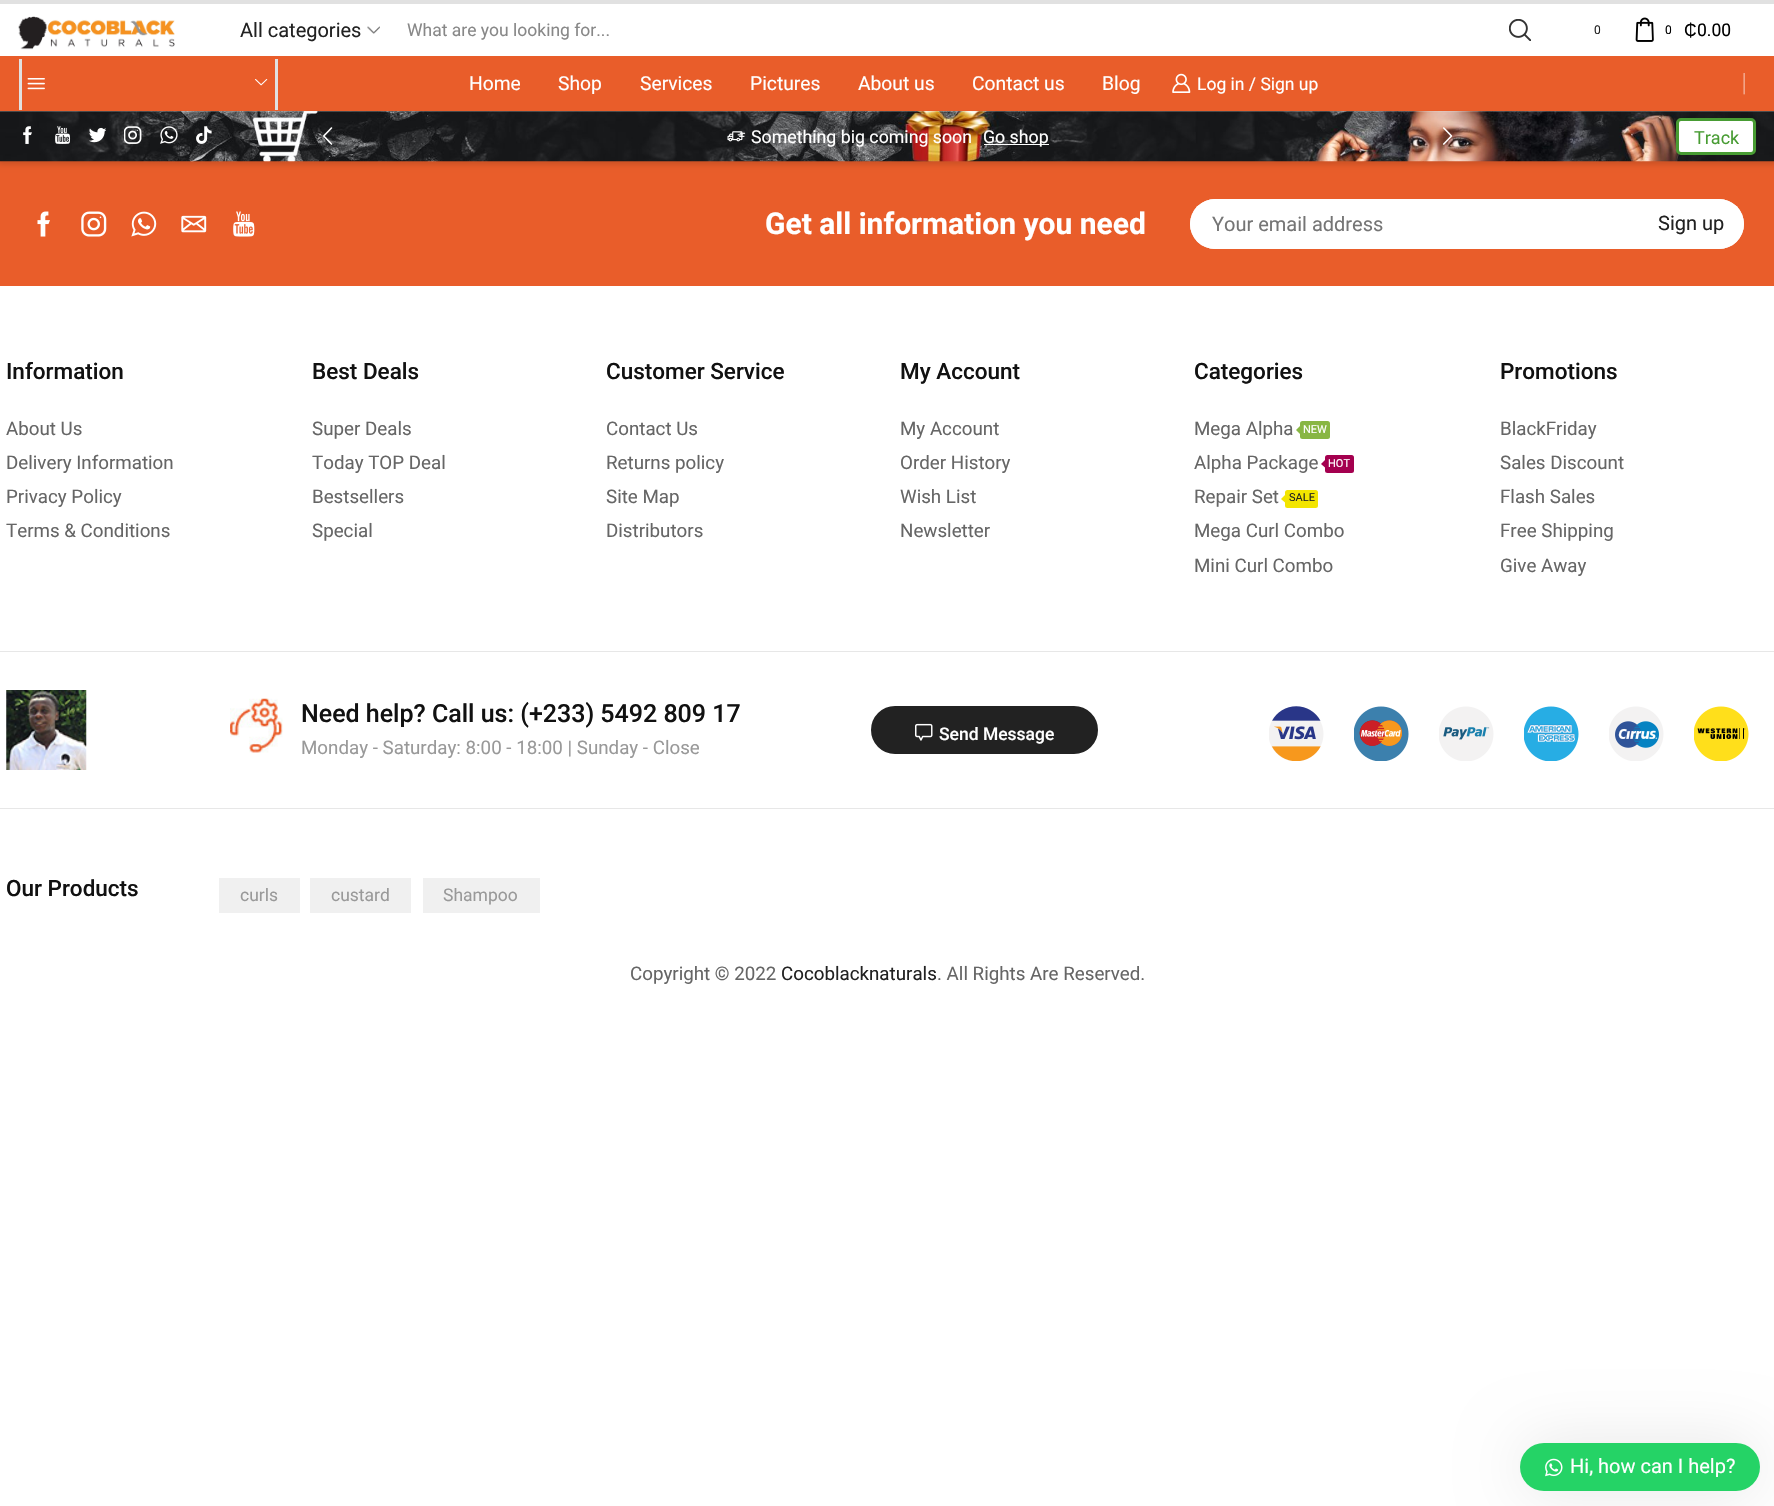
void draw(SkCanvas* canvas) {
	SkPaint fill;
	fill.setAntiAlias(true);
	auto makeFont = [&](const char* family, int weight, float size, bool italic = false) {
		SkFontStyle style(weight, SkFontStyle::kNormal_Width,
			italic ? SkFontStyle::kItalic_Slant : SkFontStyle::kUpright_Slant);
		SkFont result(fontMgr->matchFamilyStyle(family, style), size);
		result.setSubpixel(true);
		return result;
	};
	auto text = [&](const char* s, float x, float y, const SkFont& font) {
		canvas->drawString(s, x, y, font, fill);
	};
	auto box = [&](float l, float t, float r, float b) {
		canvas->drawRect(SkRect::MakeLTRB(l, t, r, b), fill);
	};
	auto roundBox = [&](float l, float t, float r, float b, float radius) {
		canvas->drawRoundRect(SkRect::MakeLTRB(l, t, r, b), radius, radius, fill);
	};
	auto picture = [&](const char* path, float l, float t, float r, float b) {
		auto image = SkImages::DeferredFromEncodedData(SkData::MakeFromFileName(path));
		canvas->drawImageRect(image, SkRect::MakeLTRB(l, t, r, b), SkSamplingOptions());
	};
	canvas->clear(0xFFFFFFFF);
	fill.setColor(0xFFE1E1E1);
	box(0, 0, 1774, 4);
	picture("image0.png", 18, 16, 175, 50);
	picture("image1.png", 367, 26, 380, 34);
	picture("image2.png", 1509, 19, 1531, 41);
	picture("image3.png", 1635, 17, 1654, 42);
	fill.setColor(0xFFE95D2A);
	box(0, 161, 1774, 286);
	fill.setColor(0x26000000);
	fill.setMaskFilter(SkMaskFilter::MakeBlur(kNormal_SkBlurStyle, 3));
	canvas->drawRect(SkRect::MakeLTRB(-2, 109, 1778, 164), fill);
	fill.setMaskFilter(nullptr);
	fill.setColor(0xFFE95D2A);
	box(0, 56, 1774, 111);
	fill.setColor(0xFFE1E1E1);
	box(275, 59, 278, 110);
	box(19, 59, 22, 110);
	picture("image4.png", 27, 78, 45, 90);
	picture("image5.png", 255, 79, 268, 86);
	picture("image6.png", 1172, 73, 1191, 93);
	picture("image7.png", 0, 111, 1774, 162);
	picture("image8.png", 23, 126, 32, 144);
	picture("image9.png", 55, 126, 71, 144);
	picture("image10.png", 89, 127, 106, 143);
	picture("image11.png", 124, 126, 142, 144);
	picture("image12.png", 160, 126, 178, 144);
	picture("image13.png", 196, 126, 212, 144);
	picture("image14.png", 323, 127, 333, 145);
	picture("image15.png", 727, 131, 746, 142);
	fill.setColor(0xFFFFFFFF);
	box(984, 144, 1049, 145);
	picture("image16.png", 1443, 127, 1453, 145);
	canvas->drawRoundRect(SkRect::MakeLTRB(1677.5f, 119.5f, 1754.5f, 153.5f), 3.5f, 3.5f, fill);
	fill.setStyle(SkPaint::kStroke_Style);
	fill.setStrokeWidth(3);
	fill.setColor(0xFF489C33);
	canvas->drawRoundRect(SkRect::MakeLTRB(1677.5f, 119.5f, 1754.5f, 153.5f), 3.5f, 3.5f, fill);
	picture("image17.png", 37, 211, 50, 237);
	picture("image18.png", 81, 211, 107, 237);
	picture("image19.png", 131, 211, 157, 237);
	picture("image20.png", 181, 215, 207, 233);
	picture("image21.png", 233, 211, 255, 237);
	fill.setStyle(SkPaint::kFill_Style);
	fill.setColor(0xFFFFFFFF);
	roundBox(1190, 199, 1744, 249, 25);
	roundBox(1190, 199, 1639, 249, 25);
	roundBox(1639, 199, 1744, 249, 25);
	fill.setColor(0xFF88B643);
	roundBox(1300, 421, 1330, 439, 2.5f);
	canvas->drawPath(SkPathBuilder().moveTo(1300, 426).lineTo(1300, 434).lineTo(1296, 430).close().detach(), fill);
	fill.setColor(0xFFA4004F);
	roundBox(1325, 455, 1354, 473, 2.5f);
	canvas->drawPath(SkPathBuilder().moveTo(1325, 460).lineTo(1325, 467.5f).lineTo(1321, 464).close().detach(), fill);
	fill.setColor(0xFFF3E500);
	roundBox(1285, 490, 1318, 508, 2.5f);
	canvas->drawPath(SkPathBuilder().moveTo(1285, 495).lineTo(1285, 502.5f).lineTo(1281, 499).close().detach(), fill);
	fill.setColor(0xFFE7E7E7);
	box(0, 651, 1774, 652);
	box(0, 808, 1774, 809);
	picture("image22.png", 6, 690, 87, 770);
	picture("image23.png", 230, 698, 283, 753);
	fill.setColor(0xFF222222);
	canvas->drawRoundRect(SkRect::MakeLTRB(872.5f, 707.5f, 1096.5f, 752.5f), 22.5f, 22.5f, fill);
	fill.setStyle(SkPaint::kStroke_Style);
	canvas->drawRoundRect(SkRect::MakeLTRB(872.5f, 707.5f, 1096.5f, 752.5f), 22.5f, 22.5f, fill);
	picture("image24.png", 915, 723, 933, 741);
	picture("image25.png", 1269, 706, 1324, 761);
	picture("image26.png", 1354, 706, 1409, 761);
	picture("image27.png", 1439, 706, 1494, 761);
	picture("image28.png", 1524, 706, 1579, 761);
	picture("image29.png", 1609, 706, 1664, 761);
	picture("image30.png", 1694, 706, 1749, 761);
	fill.setStyle(SkPaint::kFill_Style);
	fill.setColor(0xFFF0F0F0);
	box(219, 878, 300, 913);
	box(310, 878, 411, 913);
	box(423, 878, 540, 913);
	fill.setColor(0x1A000000);
	fill.setMaskFilter(SkMaskFilter::MakeBlur(kNormal_SkBlurStyle, 31));
	canvas->drawRoundRect(SkRect::MakeLTRB(1520, 1443, 1760, 1491), 24, 24, fill);
	fill.setMaskFilter(nullptr);
	fill.setColor(0xFF25D366);
	roundBox(1520, 1443, 1760, 1491, 24);
	picture("image31.png", 1545, 1458, 1563, 1477);
	auto font1 = makeFont("Roboto", 400, 20);
	fill.setColor(0xFF222222);
	text("All categories", 240, 37, font1);
	auto font2 = makeFont("Roboto", 400, 17.5f);
	fill.setColor(0xFF888888);
	text("What are you looking for...", 407, 36, font2);
	auto font3 = makeFont("Roboto", 400, 12);
	fill.setColor(0xFF222222);
	text("0", 1594, 34, font3);
	fill.setColor(0xFF000000);
	text("0", 1665, 34, font3);
	auto font4 = makeFont("Liberation Sans", 400, 17.5f);
	text("₵", 1684, 36, font4);
	text("0.00", 1697, 36, font2);
	auto font5 = makeFont("Roboto", 400, 19.25f);
	fill.setColor(0xFFFFFFFF);
	text("Home", 469, 90, font5);
	text("Shop", 558, 90, font5);
	text("Services", 640, 90, font5);
	text("Pictures", 750, 90, font5);
	text("About us", 858, 90, font5);
	text("Contact us", 972, 90, font5);
	text("Blog", 1102, 90, font5);
	text("Log in / Sign up", 1197, 90, font2);
	auto font6 = makeFont("Liberation Serif", 400, 17.5f);
	fill.setColor(0xFFF4AE95);
	text("│", 1738, 89, font6);
	auto font7 = makeFont("Roboto", 400, 17.75f);
	fill.setColor(0xFFFFFFFF);
	text("Something big coming soon", 751, 143, font7);
	text("Go shop", 983, 143, font7);
	auto font8 = makeFont("Roboto", 400, 18);
	fill.setColor(0xFF489C33);
	text("Track", 1694, 144, font8);
	auto font9 = makeFont("Roboto", 700, 30);
	fill.setColor(0xFFFFFFFF);
	text("Get all information you need", 765, 234, font9);
	fill.setColor(0xFF757575);
	text("Your email address", 1212, 231, font1);
	fill.setColor(0xFF222222);
	text("Sign up", 1658, 230, font1);
	auto font10 = makeFont("Roboto", 500, 22.5f);
	fill.setColor(0xFF111111);
	text("Information", 6, 379, font10);
	auto font11 = makeFont("Roboto", 400, 18.75f);
	fill.setColor(0xFF666666);
	text("About Us", 6, 435, font11);
	text("Delivery Information", 6, 469, font11);
	text("Privacy Policy", 6, 503, font11);
	text("Terms & Conditions", 6, 537, font11);
	fill.setColor(0xFF111111);
	text("Best Deals", 312, 379, font10);
	fill.setColor(0xFF666666);
	text("Super Deals", 312, 435, font11);
	text("Today TOP Deal", 312, 469, font11);
	text("Bestsellers", 312, 503, font11);
	text("Special", 312, 537, font11);
	fill.setColor(0xFF111111);
	text("Customer Service", 606, 379, font10);
	fill.setColor(0xFF666666);
	text("Contact Us", 606, 435, font11);
	text("Returns policy", 606, 469, font11);
	text("Site Map", 606, 503, font11);
	text("Distributors", 606, 537, font11);
	fill.setColor(0xFF111111);
	text("My Account", 900, 379, font10);
	fill.setColor(0xFF666666);
	text("My Account", 900, 435, font11);
	text("Order History", 900, 469, font11);
	text("Wish List", 900, 503, font11);
	text("Newsletter", 900, 537, font11);
	fill.setColor(0xFF111111);
	text("Categories", 1194, 379, font10);
	fill.setColor(0xFF666666);
	text("Mega Alpha", 1194, 435, font11);
	auto font12 = makeFont("Roboto", 400, 11);
	fill.setColor(0xFFFFFFFF);
	text("NEW", 1303, 433, font12);
	fill.setColor(0xFF666666);
	text("Alpha Package", 1194, 469, font11);
	fill.setColor(0xFFFFFFFF);
	text("HOT", 1328, 467, font12);
	fill.setColor(0xFF666666);
	text("Repair Set", 1194, 503, font11);
	fill.setColor(0xFF222222);
	text("SALE", 1289, 501, font12);
	fill.setColor(0xFF666666);
	text("Mega Curl Combo", 1194, 537, font11);
	text("Mini Curl Combo", 1194, 572, font11);
	fill.setColor(0xFF111111);
	text("Promotions", 1500, 379, font10);
	fill.setColor(0xFF666666);
	text("BlackFriday", 1500, 435, font11);
	text("Sales Discount", 1500, 469, font11);
	text("Flash Sales", 1500, 503, font11);
	text("Free Shipping", 1500, 537, font11);
	text("Give Away", 1500, 572, font11);
	auto font13 = makeFont("Roboto", 500, 25);
	fill.setColor(0xFF111111);
	text("Need help? Call us: (+233) 5492 809 17", 301, 722, font13);
	fill.setColor(0xFF999999);
	text("Monday - Saturday: 8:00 - 18:00 | Sunday - Close", 301, 754, font11);
	auto font14 = makeFont("Roboto", 500, 17.5f);
	fill.setColor(0xFFFFFFFF);
	text("Send Message", 939, 740, font14);
	fill.setColor(0xFF111111);
	text("Our Products", 6, 896, font10);
	fill.setColor(0xFF999999);
	text("curls", 240, 901, font2);
	text("custard", 331, 901, font2);
	text("Shampoo", 443, 901, font2);
	fill.setColor(0xFF666666);
	text("Copyright © 2022", 630, 980, font11);
	fill.setColor(0xFF222222);
	text("Cocoblacknaturals", 781, 980, font11);
	fill.setColor(0xFF666666);
	text(". All Rights Are Reserved.", 937, 980, font11);
	fill.setColor(0xFFFFFFFF);
	text("Hi, how can I help?", 1570, 1473, font1);
}
